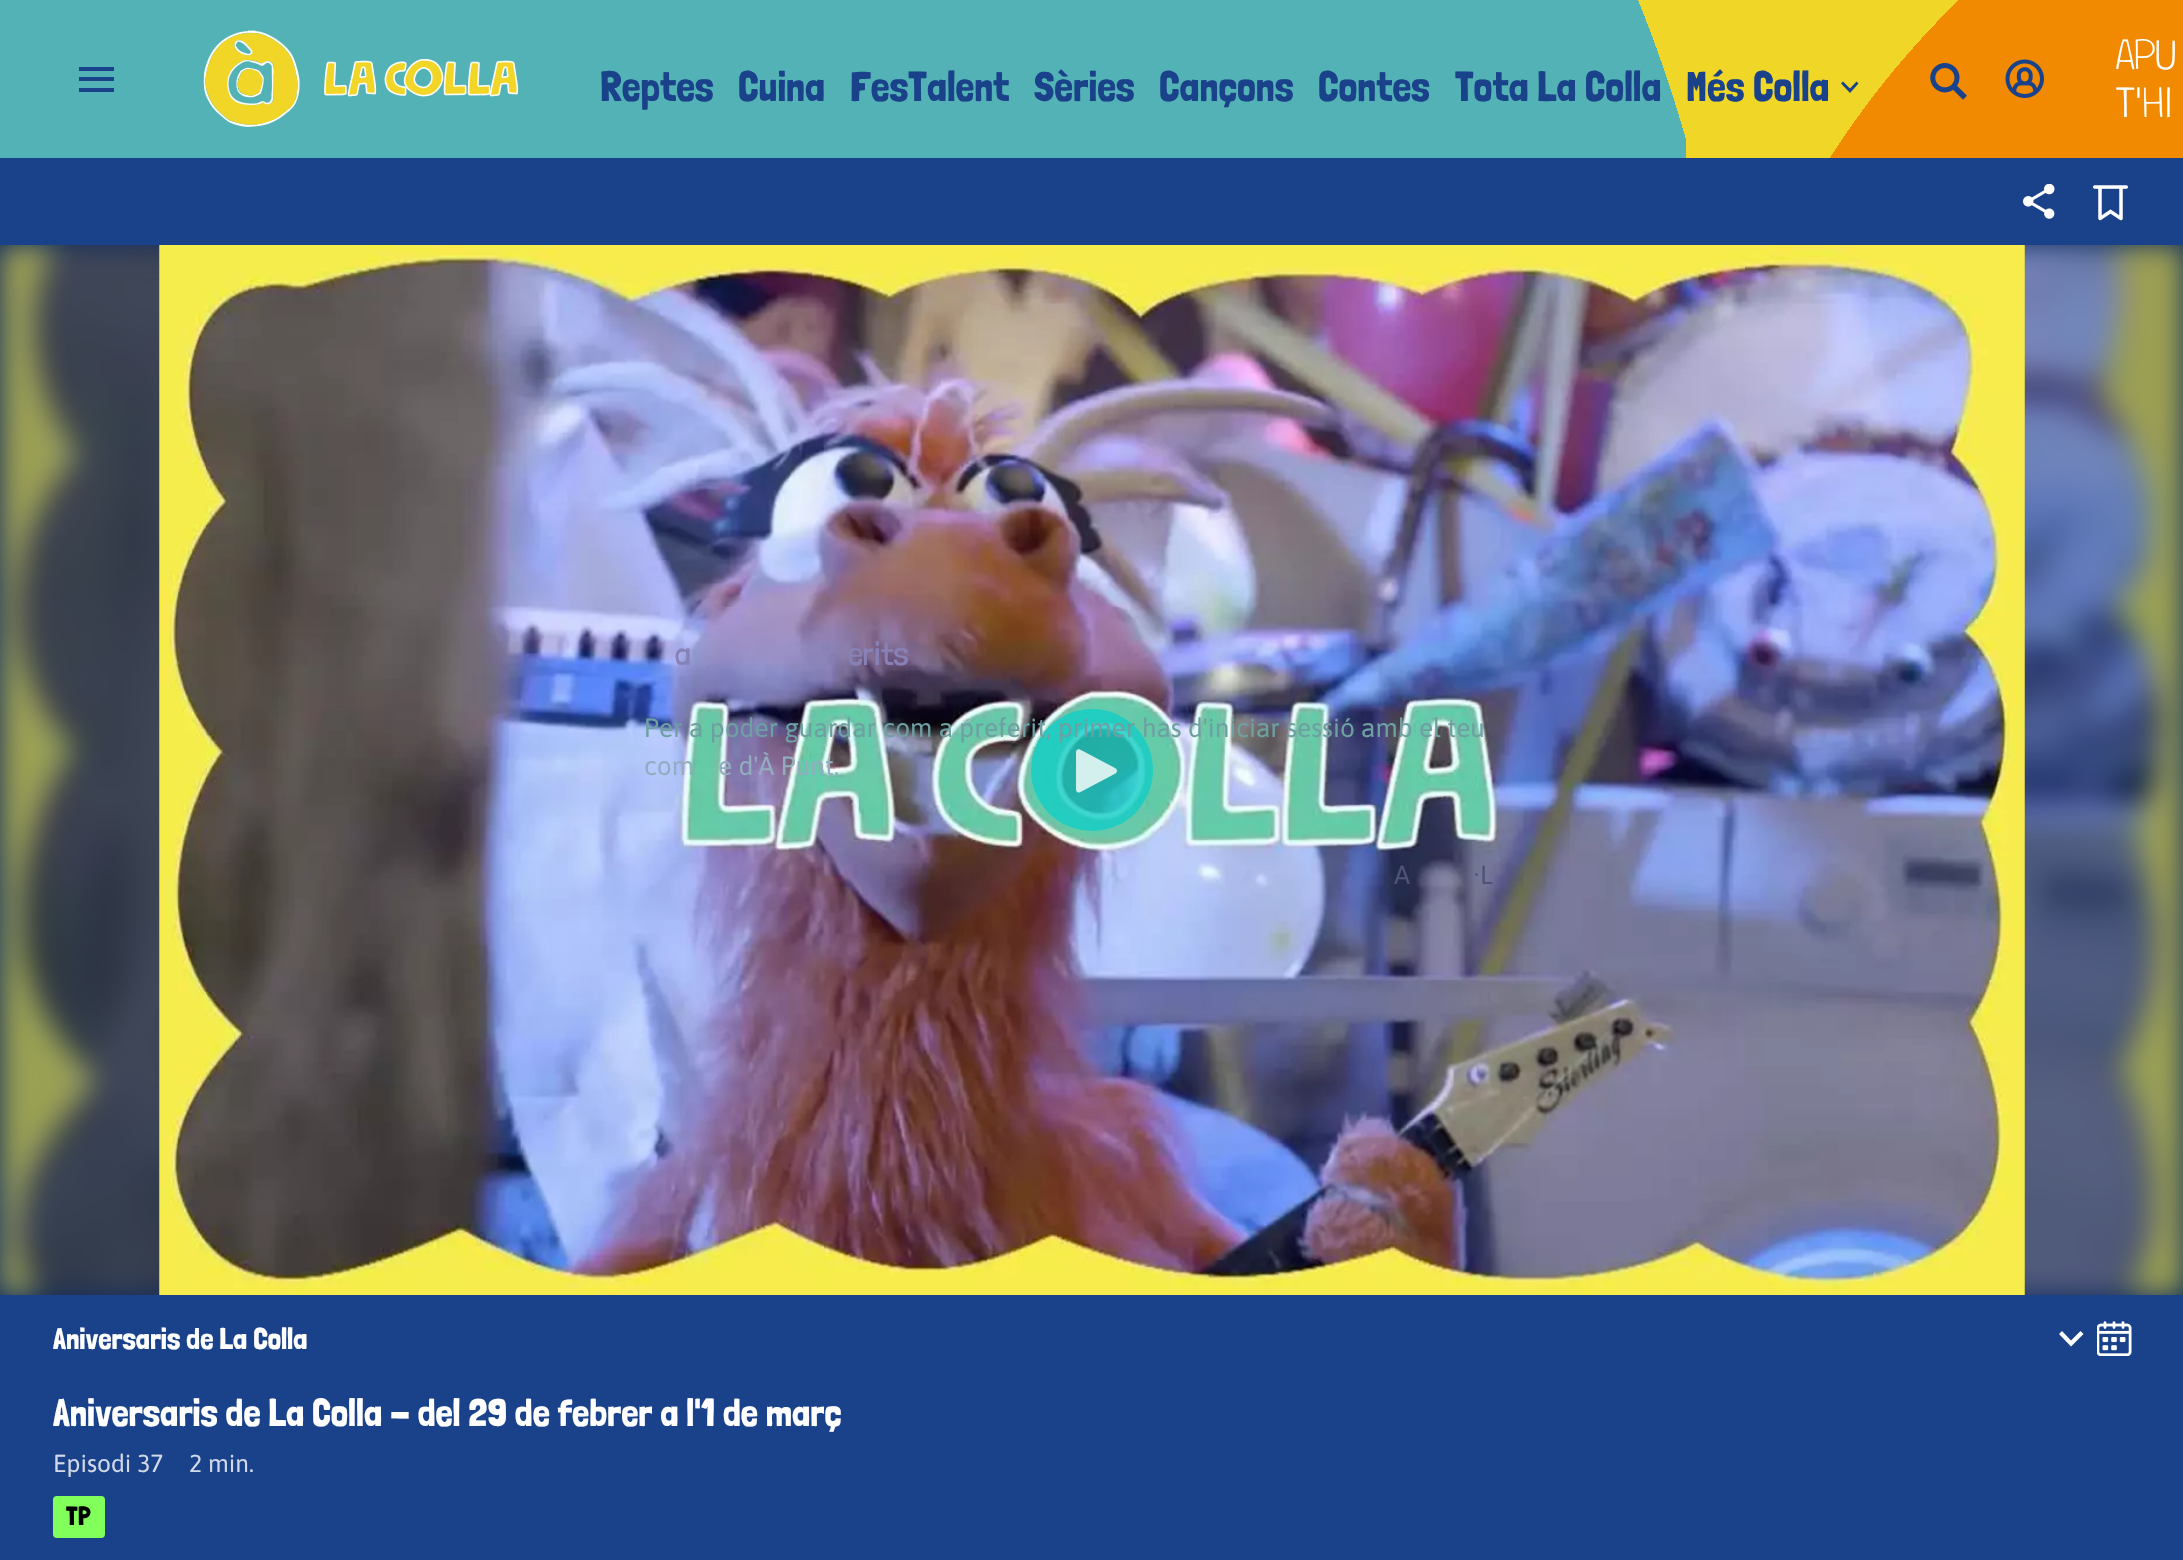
void draw(SkCanvas* canvas) {
	SkPaint fill;
	fill.setAntiAlias(true);
	auto makeFont = [&](const char* family, int weight, float size, bool italic = false) {
		SkFontStyle style(weight, SkFontStyle::kNormal_Width,
			italic ? SkFontStyle::kItalic_Slant : SkFontStyle::kUpright_Slant);
		SkFont result(fontMgr->matchFamilyStyle(family, style), size);
		result.setSubpixel(true);
		return result;
	};
	auto text = [&](const char* s, float x, float y, const SkFont& font) {
		canvas->drawString(s, x, y, font, fill);
	};
	auto box = [&](float l, float t, float r, float b) {
		canvas->drawRect(SkRect::MakeLTRB(l, t, r, b), fill);
	};
	auto roundBox = [&](float l, float t, float r, float b, float radius) {
		canvas->drawRoundRect(SkRect::MakeLTRB(l, t, r, b), radius, radius, fill);
	};
	auto picture = [&](const char* path, float l, float t, float r, float b) {
		auto image = SkImages::DeferredFromEncodedData(SkData::MakeFromFileName(path));
		canvas->drawImageRect(image, SkRect::MakeLTRB(l, t, r, b), SkSamplingOptions());
	};
	canvas->clear(0xFF1A428A);
	{
		const SkColor colors[] = {0xFFF18A00, 0xFFF0D727};
		const float stops[] = {1, 1};
		fill.setShader(SkGradientShader::MakeRadial({2569, 630}, 877, colors, stops, 2, SkTileMode::kClamp));
		fill.setAlpha(255);
	}
	box(1635, 0, 2183, 158);
	{
		const SkColor colors[] = {0xFF53B2B6, 0x0053B2B6};
		const float stops[] = {1, 1};
		fill.setShader(SkGradientShader::MakeRadial({338, 525}, 1402, colors, stops, 2, SkTileMode::kClamp));
		fill.setAlpha(255);
	}
	box(0, 0, 1686, 158);
	fill.setShader(nullptr);
	fill.setColor(0xFF1A428A);
	box(79, 67, 114, 71);
	box(79, 77, 114, 81);
	box(79, 88, 114, 92);
	picture("image0.png", 203, 30, 519, 127);
	canvas->drawPath(SkPathBuilder().moveTo(1843, 81.5f).lineTo(1850, 88.5f).lineTo(1856.5f, 81.5f).lineTo(1858.5f, 83.5f).lineTo(1850, 93).lineTo(1841, 83.5f).close().detach(), fill);
	picture("image1.png", 1930, 63, 1967, 100);
	picture("image2.png", 2005, 59, 2044, 98);
	fill.setColor(0xFF112B5C);
	box(0, 245, 2183, 1295);
	picture("image3.png", 0, 245, 2183, 1295);
	picture("image4.png", 159, 245, 2025, 1295);
	fill.setColor(0xCC12CDC6);
	canvas->drawCircle(1092, 770, 61, fill);
	picture("image5.png", 1076, 749, 1117, 793);
	picture("image6.png", 2023, 184, 2055, 219);
	picture("image7.png", 2093, 185, 2128, 221);
	fill.setColor(0xFFFFFFFF);
	canvas->drawPath(SkPathBuilder().moveTo(2080.5f, 1331).lineTo(2071, 1340.5f).lineTo(2062, 1331).lineTo(2059, 1334).lineTo(2071, 1346.5f).lineTo(2083.5f, 1334).close().detach(), fill);
	picture("image8.png", 2097, 1321, 2132, 1356);
	fill.setColor(0xFF81FF5B);
	roundBox(53, 1496, 105, 1538, 4);
	auto font1 = makeFont("Londrina Solid", 400, 42);
	fill.setColor(0xFF1A428A);
	text("Reptes", 600, 101, font1);
	text("Cuina", 738, 101, font1);
	text("FesTalent", 850, 101, font1);
	text("Sèries", 1034, 101, font1);
	text("Cançons", 1159, 101, font1);
	text("Contes", 1318, 101, font1);
	text("Tota La Colla", 1455, 101, font1);
	text("Més Colla", 1686, 101, font1);
	auto font2 = makeFont("Londrina Solid", 100, 42);
	fill.setColor(0xFFFFFFFF);
	text("APU", 2116, 69, font2);
	text("T'HI", 2116, 117, font2);
	auto font3 = makeFont("Londrina Solid", 300, 33);
	fill.setColor(0xFF8881B6);
	text("a", 675, 665, font3);
	text("erits", 848, 665, font3);
	auto font4 = makeFont("Asap", 400, 26.25f);
	fill.setColor(0xFF6EA0A2);
	text("Per a poder guardar com a preferit, primer has d'iniciar sessió amb el teu", 644, 737, font4);
	fill.setColor(0xFF92ADBF);
	text("com", 644, 775, font4);
	text("e d'À Punt.", 718, 775, font4);
	fill.setColor(0xFF505277);
	text("A", 1394, 884, font4);
	text("·L", 1473, 884, font4);
	auto font5 = makeFont("Londrina Solid", 400, 29.75f);
	fill.setColor(0xFFFFFFFF);
	text("Aniversaris de La Colla", 53, 1349, font5);
	auto font6 = makeFont("Londrina Solid", 400, 38.5f);
	text("Aniversaris de La Colla - del 29 de febrer a l'1 de març", 53, 1426, font6);
	auto font7 = makeFont("Asap", 400, 24.5f);
	fill.setColor(0xFFD1D9E8);
	text("Episodi 37", 53, 1472, font7);
	text("2 min.", 189, 1472, font7);
	auto font8 = makeFont("Londrina Solid", 400, 26.25f);
	fill.setColor(0xFF000000);
	text("TP", 66, 1525, font8);
}
